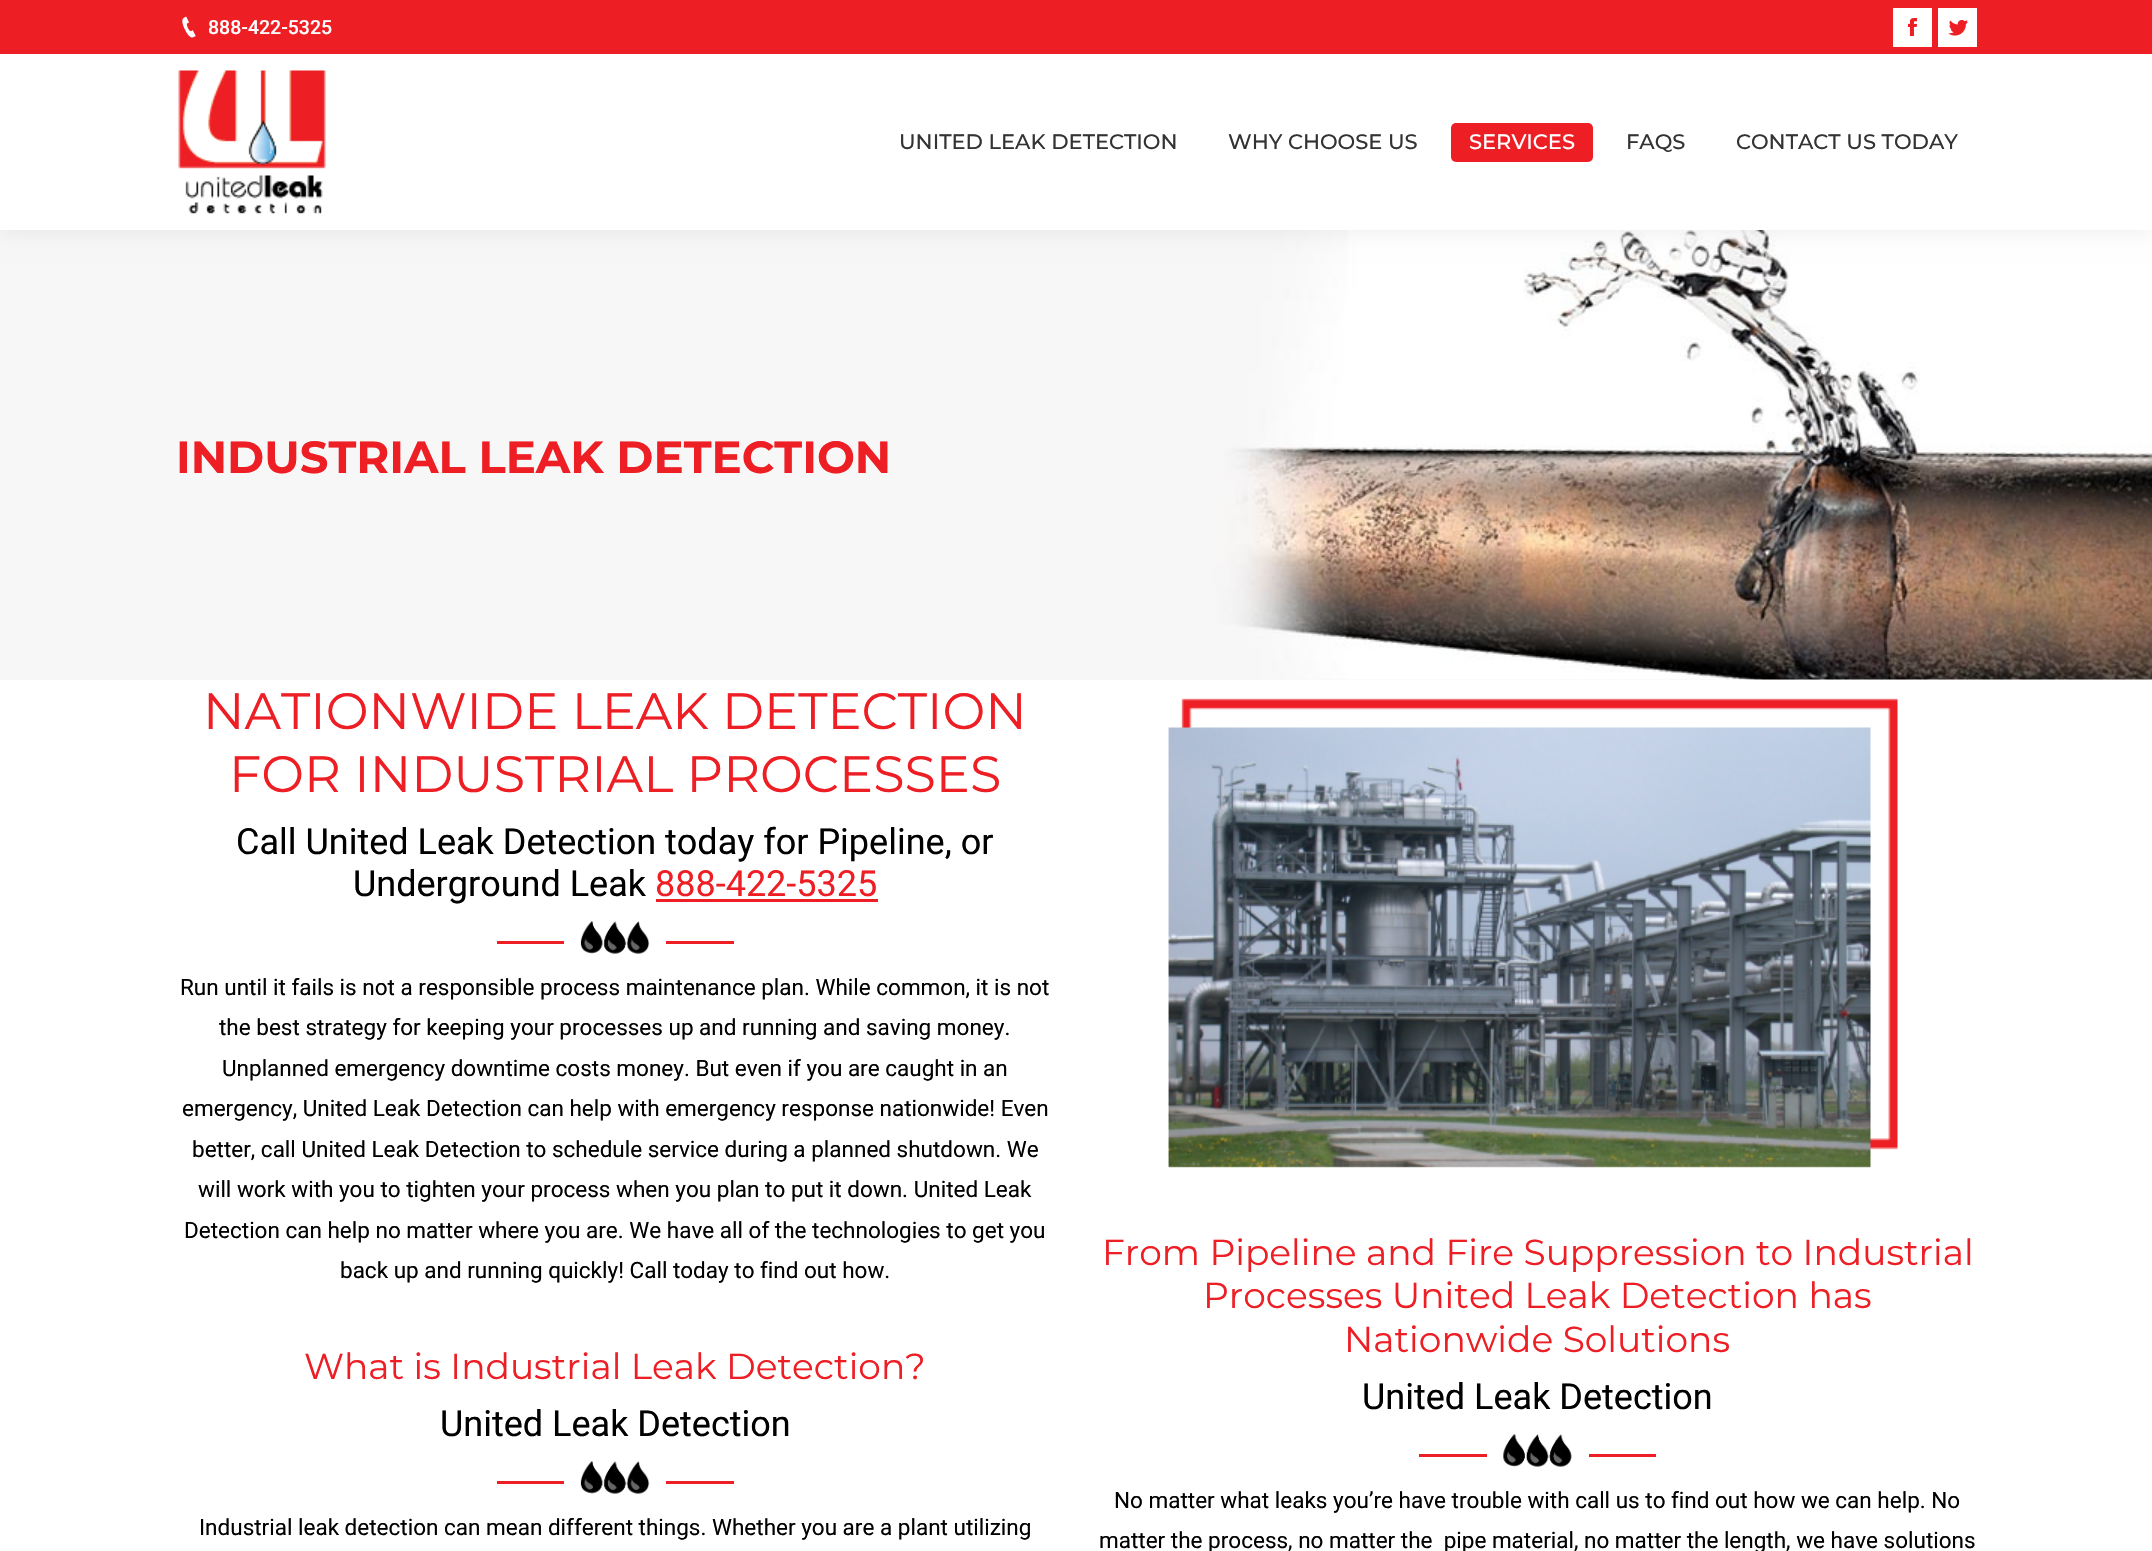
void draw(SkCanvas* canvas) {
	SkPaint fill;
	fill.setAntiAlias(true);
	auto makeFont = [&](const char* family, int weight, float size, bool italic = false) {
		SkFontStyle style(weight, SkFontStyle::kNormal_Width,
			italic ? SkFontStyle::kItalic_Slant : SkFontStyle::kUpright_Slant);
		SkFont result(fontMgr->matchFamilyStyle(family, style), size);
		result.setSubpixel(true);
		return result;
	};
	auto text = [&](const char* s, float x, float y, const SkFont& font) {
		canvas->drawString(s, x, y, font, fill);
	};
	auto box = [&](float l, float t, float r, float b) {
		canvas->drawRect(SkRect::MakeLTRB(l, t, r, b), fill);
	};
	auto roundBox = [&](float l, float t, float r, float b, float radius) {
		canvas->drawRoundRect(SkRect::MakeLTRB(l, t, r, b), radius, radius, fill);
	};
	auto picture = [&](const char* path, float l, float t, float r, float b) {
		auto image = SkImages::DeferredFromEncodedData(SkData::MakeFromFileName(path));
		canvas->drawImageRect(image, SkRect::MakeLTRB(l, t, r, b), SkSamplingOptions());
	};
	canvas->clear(0xFFFFFFFF);
	fill.setColor(0xFFF7F7F7);
	box(0, 679, 2152, 680);
	picture("image4.png", 0, 230, 2152, 680);
	fill.setColor(0x12000000);
	fill.setMaskFilter(SkMaskFilter::MakeBlur(kNormal_SkBlurStyle, 11));
	canvas->drawRect(SkRect::MakeLTRB(-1, -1, 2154, 231), fill);
	fill.setMaskFilter(nullptr);
	fill.setColor(0xFFFFFFFF);
	box(0, 54, 2152, 230);
	fill.setColor(0xFFED1E24);
	box(0, 0, 2152, 54);
	picture("image0.png", 182, 16, 196, 38);
	fill.setColor(0xFFFFFFFF);
	box(1893, 8, 1932, 47);
	picture("image1.png", 1907, 18, 1918, 36);
	box(1938, 8, 1977, 47);
	picture("image2.png", 1948, 19, 1968, 36);
	picture("image3.png", 178, 70, 326, 214);
	fill.setColor(0xFFED1E24);
	roundBox(1451, 123, 1593, 162, 5);
	box(656, 899, 878, 902);
	box(497, 941, 564, 944);
	picture("image5.png", 580, 921, 650, 954);
	box(666, 941, 734, 944);
	box(497, 1481, 564, 1484);
	picture("image5.png", 580, 1461, 650, 1494);
	box(666, 1481, 734, 1484);
	picture("image6.png", 1168, 698, 1898, 1168);
	box(1419, 1454, 1487, 1457);
	picture("image7.png", 1503, 1434, 1572, 1467);
	box(1589, 1454, 1656, 1457);
	auto font1 = makeFont("Roboto", 500, 19.5f);
	fill.setColor(0xFFFFFFFF);
	text("888-422-5325", 208, 34, font1);
	auto font2 = makeFont("Montserrat", 500, 21);
	fill.setColor(0xFF333333);
	text("UNITED LEAK DETECTION", 899, 149, font2);
	text("WHY CHOOSE US", 1228, 149, font2);
	fill.setColor(0xFFFFFFFF);
	text("SERVICES", 1469, 149, font2);
	fill.setColor(0xFF333333);
	text("FAQS", 1626, 149, font2);
	text("CONTACT US TODAY", 1736, 149, font2);
	auto font3 = makeFont("Montserrat", 700, 45);
	fill.setColor(0xFFED1E24);
	text("INDUSTRIAL LEAK DETECTION", 176, 473, font3);
	auto font4 = makeFont("Montserrat", 400, 51);
	text("NATIONWIDE LEAK DETECTION", 203, 729, font4);
	text("FOR INDUSTRIAL PROCESSES", 229, 792, font4);
	auto font5 = makeFont("Roboto", 400, 36);
	fill.setColor(0xFF000000);
	text("Call United Leak Detection today for Pipeline, or", 236, 854, font5);
	text("Underground Leak", 353, 896, font5);
	fill.setColor(0xFFED1E24);
	text("888-422-5325", 655, 896, font5);
	auto font6 = makeFont("Roboto", 400, 22.5f);
	fill.setColor(0xFF000000);
	text("Run until it fails is not a responsible process maintenance plan. While common, it is not", 180, 995, font6);
	text("the best strategy for keeping your processes up and running and saving money.", 219, 1035, font6);
	text("Unplanned emergency downtime costs money. But even if you are caught in an", 222, 1076, font6);
	text("emergency, United Leak Detection can help with emergency response nationwide! Even", 182, 1116, font6);
	text("better, call United Leak Detection to schedule service during a planned shutdown. We", 192, 1157, font6);
	text("will work with you to tighten your process when you plan to put it down. United Leak", 198, 1197, font6);
	text("Detection can help no matter where you are. We have all of the technologies to get you", 184, 1238, font6);
	text("back up and running quickly! Call today to find out how.", 340, 1278, font6);
	auto font7 = makeFont("Montserrat", 400, 36);
	fill.setColor(0xFFED1E24);
	text("What is Industrial Leak Detection?", 304, 1379, font7);
	fill.setColor(0xFF000000);
	text("United Leak Detection", 440, 1436, font5);
	text("Industrial leak detection can mean different things. Whether you are a plant utilizing", 199, 1535, font6);
	fill.setColor(0xFFED1E24);
	text("From Pipeline and Fire Suppression to Industrial", 1102, 1265, font7);
	text("Processes United Leak Detection has", 1203, 1308, font7);
	text("Nationwide Solutions", 1344, 1352, font7);
	fill.setColor(0xFF000000);
	text("United Leak Detection", 1362, 1409, font5);
	text("No matter what leaks you’re have trouble with call us to find out how we can help. No", 1114, 1508, font6);
	text("matter the process, no matter the  pipe material, no matter the length, we have solutions", 1099, 1548, font6);
}
